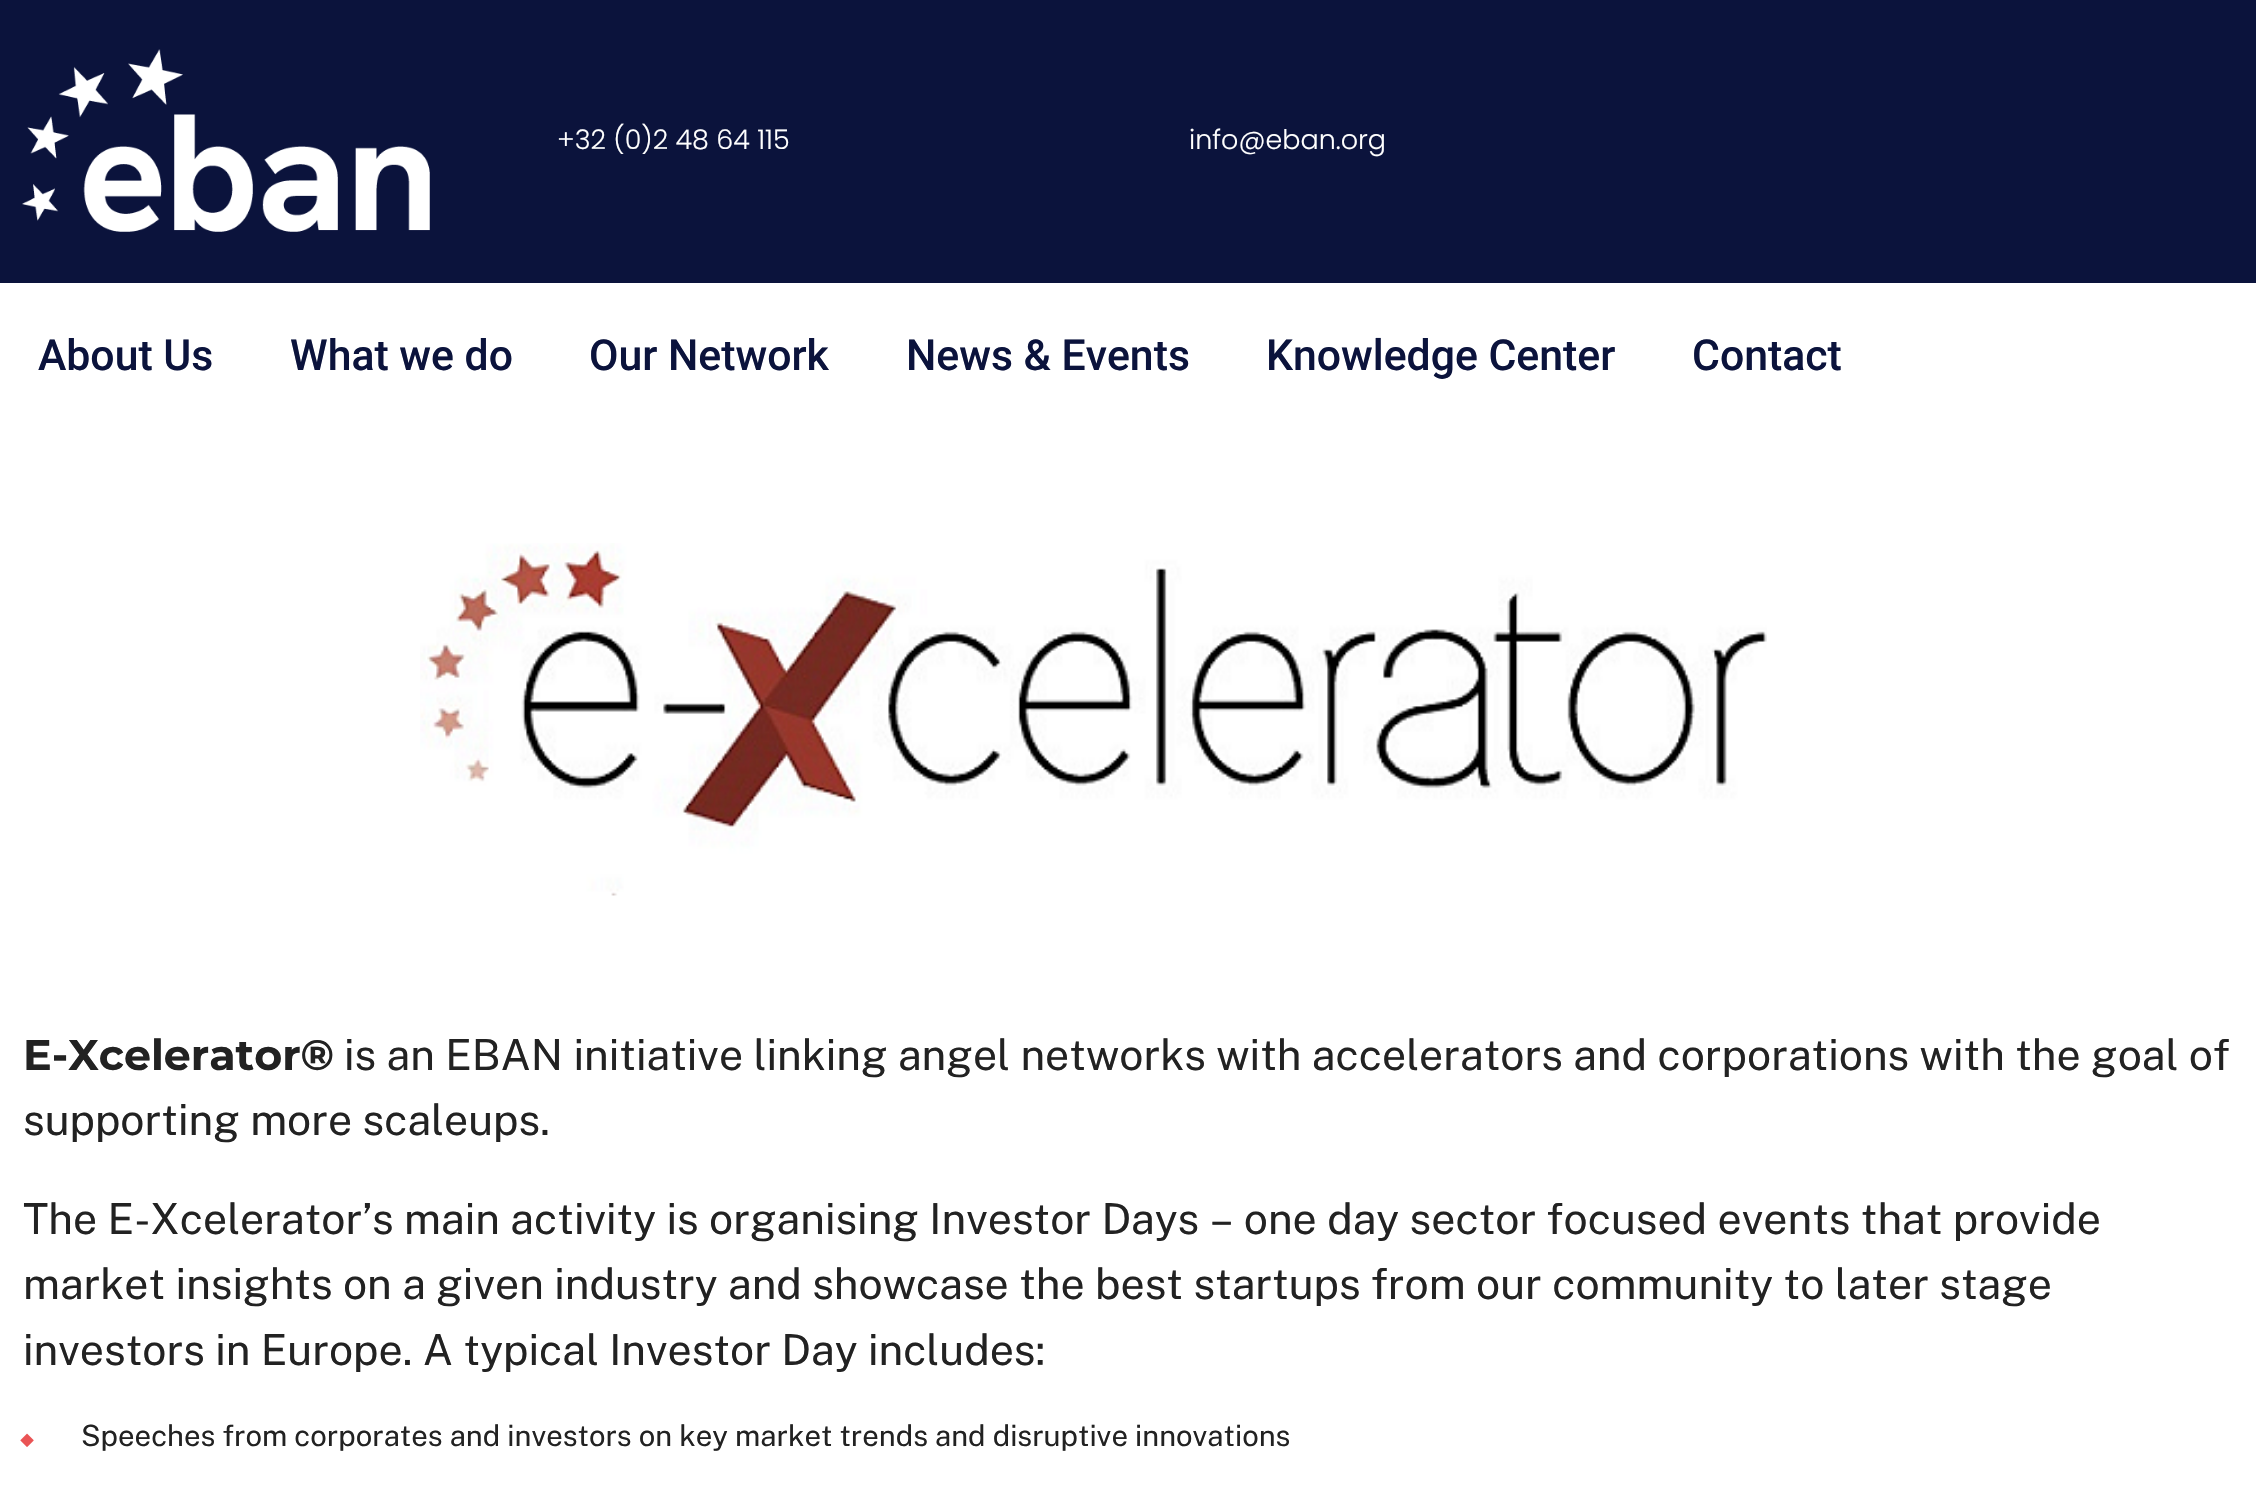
void draw(SkCanvas* canvas) {
	SkPaint fill;
	fill.setAntiAlias(true);
	auto makeFont = [&](const char* family, int weight, float size, bool italic = false) {
		SkFontStyle style(weight, SkFontStyle::kNormal_Width,
			italic ? SkFontStyle::kItalic_Slant : SkFontStyle::kUpright_Slant);
		SkFont result(fontMgr->matchFamilyStyle(family, style), size);
		result.setSubpixel(true);
		return result;
	};
	auto text = [&](const char* s, float x, float y, const SkFont& font) {
		canvas->drawString(s, x, y, font, fill);
	};
	auto box = [&](float l, float t, float r, float b) {
		canvas->drawRect(SkRect::MakeLTRB(l, t, r, b), fill);
	};
	auto picture = [&](const char* path, float l, float t, float r, float b) {
		auto image = SkImages::DeferredFromEncodedData(SkData::MakeFromFileName(path));
		canvas->drawImageRect(image, SkRect::MakeLTRB(l, t, r, b), SkSamplingOptions());
	};
	canvas->clear(0xFFFFFFFF);
	fill.setColor(0xFF0B133C);
	box(0, 0, 2256, 283);
	picture("image0.png", 22, 49, 430, 232);
	picture("image1.png", 420, 543, 1767, 896);
	picture("image2.png", 20, 1433, 34, 1447);
	auto font1 = makeFont("Poppins", 300, 27);
	fill.setColor(0xFFFFFFFF);
	text("+32 (0)2 48 64 115", 557, 149, font1);
	text("info@eban.org", 1189, 149, font1);
	auto font2 = makeFont("Roboto", 500, 42.75f);
	fill.setColor(0xFF0B133C);
	text("About Us", 38, 370, font2);
	text("What we do", 290, 370, font2);
	text("Our Network", 589, 370, font2);
	text("News & Events", 906, 370, font2);
	text("Knowledge Center", 1266, 370, font2);
	text("Contact", 1692, 370, font2);
	auto font3 = makeFont("Montserrat", 700, 42.75f);
	fill.setColor(0xFF222222);
	text("E-Xcelerator®", 23, 1070, font3);
	auto font4 = makeFont("Public Sans", 400, 42.75f);
	text("is an EBAN initiative linking angel networks with accelerators and corporations with the goal of", 344, 1070, font4);
	text("supporting more scaleups.", 23, 1135, font4);
	text("The E-Xcelerator’s main activity is organising Investor Days – one day sector focused events that provide", 23, 1234, font4);
	text("market insights on a given industry and showcase the best startups from our community to later stage", 23, 1299, font4);
	text("investors in Europe. A typical Investor Day includes:", 23, 1365, font4);
	auto font5 = makeFont("Public Sans", 400, 29.25f);
	text("Speeches from corporates and investors on key market trends and disruptive innovations", 81, 1446, font5);
}
